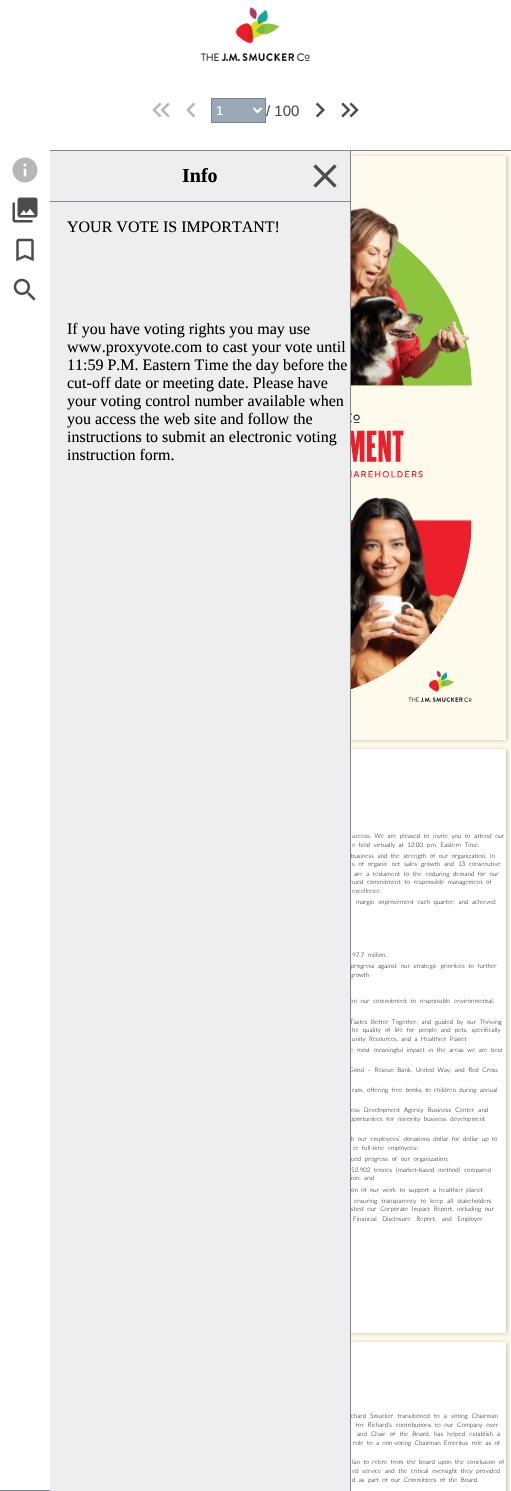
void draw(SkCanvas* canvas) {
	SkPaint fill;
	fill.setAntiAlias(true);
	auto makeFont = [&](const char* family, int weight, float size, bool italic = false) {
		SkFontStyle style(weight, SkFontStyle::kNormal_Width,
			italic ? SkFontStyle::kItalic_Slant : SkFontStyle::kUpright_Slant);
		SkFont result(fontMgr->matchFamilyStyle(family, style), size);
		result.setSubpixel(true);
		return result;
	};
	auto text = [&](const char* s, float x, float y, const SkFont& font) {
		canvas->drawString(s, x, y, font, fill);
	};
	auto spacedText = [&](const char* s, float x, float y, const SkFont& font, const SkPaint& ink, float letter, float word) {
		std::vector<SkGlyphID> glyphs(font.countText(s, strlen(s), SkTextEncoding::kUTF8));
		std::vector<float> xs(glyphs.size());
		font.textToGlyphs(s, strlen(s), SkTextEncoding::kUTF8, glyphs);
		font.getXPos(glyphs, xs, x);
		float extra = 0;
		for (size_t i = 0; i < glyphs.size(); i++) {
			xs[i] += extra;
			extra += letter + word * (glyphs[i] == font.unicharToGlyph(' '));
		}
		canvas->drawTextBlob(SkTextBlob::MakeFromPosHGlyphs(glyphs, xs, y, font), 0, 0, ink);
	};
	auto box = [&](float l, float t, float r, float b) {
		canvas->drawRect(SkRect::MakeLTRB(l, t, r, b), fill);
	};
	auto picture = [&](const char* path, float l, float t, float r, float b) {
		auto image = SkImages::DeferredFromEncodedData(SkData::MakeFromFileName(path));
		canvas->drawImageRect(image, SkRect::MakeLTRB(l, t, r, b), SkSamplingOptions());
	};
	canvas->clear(0xFFFEF9E8);
	fill.setColor(0xFFFFFFFF);
	box(0, 0, 511, 150);
	picture("image0.png", 200, 7, 310, 62);
	fill.setColor(0xFF7B8793);
	box(351, 150, 511, 151);
	picture("image1.png", 152, 102, 170, 118);
	picture("image2.png", 186, 102, 196, 118);
	fill.setColor(0xFF9AA8B6);
	canvas->drawRect(SkRect::MakeLTRB(211.5f, 98.5f, 265.5f, 122.5f), fill);
	fill.setStyle(SkPaint::kStroke_Style);
	fill.setStrokeWidth(1);
	fill.setColor(0xFF7B8793);
	canvas->drawRect(SkRect::MakeLTRB(211.5f, 98.5f, 265.5f, 122.5f), fill);
	fill.setStrokeWidth(2);
	fill.setColor(0xFFFFFFFF);
	canvas->drawPath(SkPathBuilder().moveTo(253.5f, 108).lineTo(257.5f, 112).lineTo(261.5f, 108).detach(), fill);
	picture("image3.png", 315, 102, 325, 118);
	picture("image4.png", 341, 102, 359, 118);
	fill.setStyle(SkPaint::kFill_Style);
	fill.setColor(0x80787878);
	fill.setMaskFilter(SkMaskFilter::MakeBlur(kNormal_SkBlurStyle, 2));
	canvas->drawRect(SkRect::MakeLTRB(56, 157, 507, 740), fill);
	fill.setMaskFilter(nullptr);
	fill.setMaskFilter(SkMaskFilter::MakeBlur(kNormal_SkBlurStyle, 2));
	canvas->drawRect(SkRect::MakeLTRB(56, 750, 507, 1333), fill);
	fill.setMaskFilter(nullptr);
	fill.setMaskFilter(SkMaskFilter::MakeBlur(kNormal_SkBlurStyle, 2));
	canvas->drawRect(SkRect::MakeLTRB(56, 1343, 507, 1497), fill);
	fill.setMaskFilter(nullptr);
	fill.setColor(0xFFFFFFFF);
	box(0, 150, 50, 1490);
	fill.setColor(0xFF7B8793);
	box(0, 1490, 50, 1491);
	picture("image5.png", 12, 157, 38, 183);
	picture("image6.png", 12, 197, 38, 223);
	picture("image7.png", 16, 238, 34, 262);
	picture("image8.png", 13, 278, 36, 301);
	box(50, 150, 351, 151);
	fill.setColor(0xFFFFFFFF);
	box(351, 739, 506, 740);
	picture("image10.png", 351, 156, 506, 740);
	box(351, 749, 506, 1333);
	box(351, 1342, 506, 1491);
	auto font1 = makeFont("Liberation Sans", 400, 13);
	text("1", 216, 115, font1);
	auto font2 = makeFont("Liberation Sans", 400, 15);
	fill.setColor(0xFF4C4C4C);
	text("/ 100", 266, 116, font2);
	auto font3 = makeFont("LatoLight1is", 300, 6.25f);
	fill.setColor(0xFF231F20);
	text("uccess. We are pleased to invite you to attend our", 352, 838, font3);
	spacedText("e held virtually at 12:00 p.m. Eastern Time.", 352, 847, font3, fill, 0, -0.25f);
	text("business and the strength of our organization. In", 351, 858, font3);
	spacedText("s of organic net sales growth and 13 consecutive", 352, 866, font3, fill, 0, 0.25f);
	text("are a testament to the enduring demand for our", 354, 876, font3);
	text("nued commitment to responsible management of", 350, 884, font3);
	spacedText("excellence.", 352, 893, font3, fill, 0, -0.25f);
	text("margin improvement each quarter, and achieved", 356, 904, font3);
	text("97.7 million.", 352, 957, font3);
	text("progress against our strategic priorities to further", 351, 968, font3);
	text("growth", 350, 977, font3);
	text("on our commitment to responsible environmental,", 350, 1003, font3);
	text("Tastes Better Together, and guided by our Thriving", 350, 1024, font3);
	spacedText("he quality of life for people and pets, specifically", 352, 1032, font3, fill, 0, 0.5f);
	spacedText("unity Resources, and a Healthier Planet", 352, 1041, font3, fill, 0, -0.25f);
	text("e most meaningful impact in the areas we are best", 350, 1052, font3);
	text("Good – Rescue Bank, United Way, and Red Cross", 349, 1072, font3);
	fill.setColor(0xFFEEEEEE);
	box(50, 151, 350, 1491);
	auto font4 = makeFont("Liberation Serif", 400, 16);
	fill.setColor(0xFF000000);
	text("instruction form.", 67, 460, font4);
	text("instructions to submit an electronic voting", 67, 442, font4);
	text("you access the web site and follow the", 67, 424, font4);
	text("your voting control number available when", 67, 406, font4);
	text("cut-off date or meeting date. Please have", 67, 388, font4);
	text("11:59 P.M. Eastern Time the day before the", 67, 370, font4);
	text("www.proxyvote.com to cast your vote until", 67, 352, font4);
	text("If you have voting rights you may use", 67, 334, font4);
	text("YOUR VOTE IS IMPORTANT!", 67, 232, font4);
	picture("image9.png", 313, 164, 337, 188);
	auto font5 = makeFont("Liberation Serif", 700, 20);
	text("Info", 182, 182, font5);
	fill.setColor(0xFF7B8793);
	box(50, 201, 350, 202);
	fill.setColor(0xFF231F20);
	spacedText("ram, offering free books to children during annual", 352, 1092, font3, fill, 0, -0.25f);
	spacedText("ess Development Agency Business Center and", 351, 1112, font3, fill, 0, 0.5f);
	text("pportunities for minority business development", 350, 1121, font3);
	spacedText("h our employees’ donations dollar for dollar up to", 351, 1141, font3, fill, 0, -0.25f);
	spacedText("er full-time employees;", 353, 1150, font3, fill, 0, -0.25f);
	text("ued progress of our organization;", 351, 1161, font3);
	fill.setColor(0xFF7B8793);
	box(350, 150, 351, 1491);
	fill.setColor(0xFF231F20);
	text("52,902 tonnes (market-based method) compared", 351, 1172, font3);
	spacedText("ion; and", 351, 1180, font3, fill, 0, -0.25f);
	spacedText("on of our work to support a healthier planet", 351, 1192, font3, fill, 0, -0.25f);
	spacedText("ensuring transparency to keep all stakeholders", 354, 1203, font3, fill, 0, 0.5f);
	text("shed our Corporate Impact Report, including our", 351, 1211, font3);
	spacedText("Financial Disclosure Report, and Employer", 353, 1221, font3, fill, 0, 2);
	spacedText("chard Smucker transitioned to a voting Chairman", 351, 1418, font3, fill, 0, 0.5f);
	text("for Richard’s contributions to our Company over", 356, 1427, font3);
	spacedText("and Chair of the Board, has helped establish a", 357, 1436, font3, fill, 0, 0.5f);
	spacedText("role to a non-voting Chairman Emeritus role as of", 353, 1445, font3, fill, 0, -0.25f);
	spacedText("lan to retire from the board upon the conclusion of", 352, 1464, font3, fill, 0, -0.25f);
	text("ed service and the critical oversight they provided", 352, 1473, font3);
	spacedText("d as part of our Committees of the Board.", 352, 1482, font3, fill, 0, -0.25f);
}
